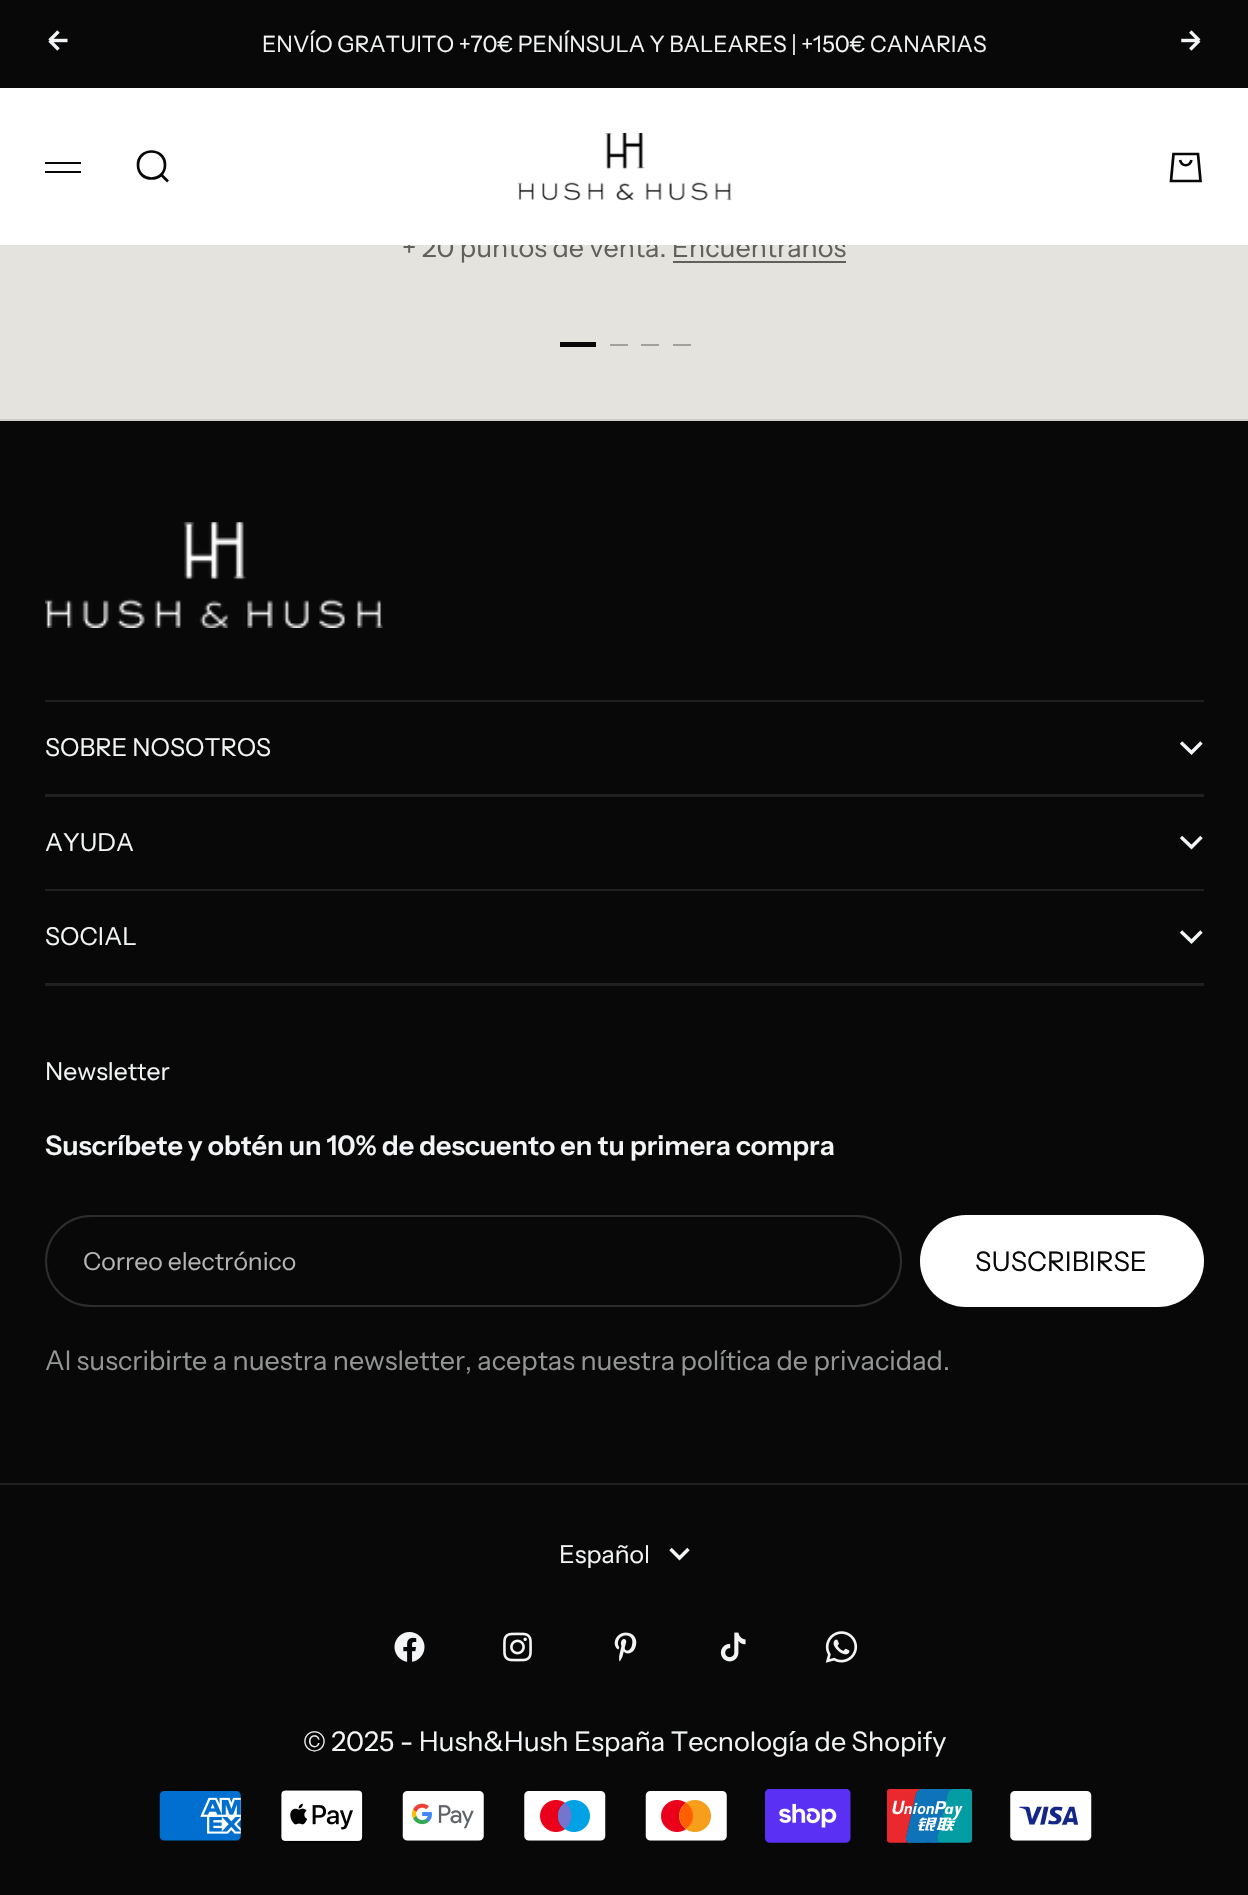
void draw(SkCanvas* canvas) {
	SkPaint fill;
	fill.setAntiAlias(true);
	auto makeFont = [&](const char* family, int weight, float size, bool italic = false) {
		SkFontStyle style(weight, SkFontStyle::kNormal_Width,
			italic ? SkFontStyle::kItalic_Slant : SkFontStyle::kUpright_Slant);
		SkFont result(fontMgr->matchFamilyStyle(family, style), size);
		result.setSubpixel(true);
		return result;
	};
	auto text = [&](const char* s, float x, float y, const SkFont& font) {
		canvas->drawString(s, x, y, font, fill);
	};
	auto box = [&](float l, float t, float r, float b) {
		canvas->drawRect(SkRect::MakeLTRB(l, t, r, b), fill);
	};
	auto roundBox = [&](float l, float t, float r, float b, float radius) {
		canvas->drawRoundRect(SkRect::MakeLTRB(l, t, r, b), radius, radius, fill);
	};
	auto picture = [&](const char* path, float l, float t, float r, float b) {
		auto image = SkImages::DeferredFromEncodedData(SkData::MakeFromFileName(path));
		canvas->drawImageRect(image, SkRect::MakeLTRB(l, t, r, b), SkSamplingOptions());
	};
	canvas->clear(0xFFE5E3DE);
	fill.setColor(0xFF080808);
	box(0, 0, 1248, 88);
	picture("image0.png", 48, 30, 68, 51);
	picture("image1.png", 1181, 30, 1201, 51);
	fill.setColor(0xFFCFCDC9);
	box(0, 419, 1248, 421);
	fill.setColor(0xFF60605E);
	box(673, 261, 846, 263);
	fill.setColor(0xFF080808);
	box(560, 342, 596, 347);
	fill.setColor(0xFFA3A19E);
	box(610, 344, 628, 346);
	box(641, 344, 659, 346);
	box(673, 344, 691, 346);
	fill.setColor(0xFF080808);
	box(0, 421, 1248, 1895);
	picture("image3.png", 45, 522, 383, 628);
	fill.setColor(0xFF1F2020);
	canvas->drawPath(SkPathBuilder().moveTo(45, 794).lineTo(45, 797).lineTo(1204, 797).lineTo(1204, 702).lineTo(1204, 794).close().detach(), fill);
	box(45, 700, 1204, 702);
	fill.setStyle(SkPaint::kStroke_Style);
	fill.setStrokeWidth(3.4f);
	fill.setColor(0xFFF2F4F5);
	canvas->drawPath(SkPathBuilder().moveTo(1201.5f, 742.5f).lineTo(1191.5f, 752.5f).lineTo(1181, 742.5f).detach(), fill);
	fill.setStyle(SkPaint::kFill_Style);
	fill.setColor(0xFF1F2020);
	canvas->drawPath(SkPathBuilder().moveTo(45, 889).lineTo(45, 891).lineTo(1204, 891).lineTo(1204, 797).lineTo(1204, 889).close().detach(), fill);
	fill.setStyle(SkPaint::kStroke_Style);
	fill.setColor(0xFFF2F4F5);
	canvas->drawPath(SkPathBuilder().moveTo(1201.5f, 837).lineTo(1191.5f, 847).lineTo(1181, 837).detach(), fill);
	fill.setStyle(SkPaint::kFill_Style);
	fill.setColor(0xFF1F2020);
	canvas->drawPath(SkPathBuilder().moveTo(45, 983).lineTo(45, 986).lineTo(1204, 986).lineTo(1204, 891).lineTo(1204, 983).close().detach(), fill);
	fill.setStyle(SkPaint::kStroke_Style);
	fill.setColor(0xFFF2F4F5);
	canvas->drawPath(SkPathBuilder().moveTo(1201.5f, 931.5f).lineTo(1191.5f, 941.5f).lineTo(1181, 931.5f).detach(), fill);
	fill.setStrokeWidth(2);
	fill.setColor(0xFF2D2D2D);
	canvas->drawRoundRect(SkRect::MakeLTRB(46, 1216, 901, 1306), 45, 45, fill);
	fill.setStyle(SkPaint::kFill_Style);
	fill.setColor(0xFFFFFFFF);
	roundBox(920, 1215, 1204, 1307, 46);
	fill.setColor(0xFF1F2020);
	box(0, 1483, 1248, 1485);
	fill.setStyle(SkPaint::kStroke_Style);
	fill.setStrokeWidth(3.4f);
	fill.setColor(0xFFF2F4F5);
	canvas->drawPath(SkPathBuilder().moveTo(670.5f, 1549).lineTo(679.5f, 1558).lineTo(688.5f, 1549).detach(), fill);
	picture("image4.png", 394, 1632, 425, 1662);
	picture("image5.png", 503, 1632, 532, 1662);
	picture("image6.png", 614, 1632, 637, 1662);
	picture("image7.png", 720, 1632, 746, 1662);
	picture("image8.png", 825, 1631, 858, 1663);
	picture("image9.png", 159, 1791, 241, 1841);
	picture("image10.png", 280, 1789, 364, 1843);
	picture("image11.png", 402, 1791, 484, 1841);
	picture("image12.png", 524, 1791, 606, 1841);
	picture("image13.png", 645, 1791, 727, 1841);
	picture("image14.png", 765, 1789, 851, 1843);
	picture("image15.png", 887, 1789, 972, 1843);
	picture("image16.png", 1010, 1791, 1092, 1841);
	auto font1 = makeFont("Instrument Sans", 400, 22.5f);
	fill.setStyle(SkPaint::kFill_Style);
	text("ENVÍO GRATUITO +70€ PENÍNSULA Y BALEARES | +150€ CANARIAS", 262, 52, font1);
	auto font2 = makeFont("Instrument Sans", 400, 27);
	fill.setColor(0xFF60605E);
	text("+ 20 puntos de venta. Encuéntranos", 402, 257, font2);
	fill.setColor(0xFFFFFFFF);
	box(0, 88, 1248, 245);
	fill.setStyle(SkPaint::kStroke_Style);
	fill.setStrokeWidth(2.7f);
	fill.setColor(0xFF080808);
	canvas->drawPath(SkPathBuilder().moveTo(1171, 181).lineTo(1173.5f, 154).lineTo(1198, 154).lineTo(1200.5f, 181).close().moveTo(1180, 160).cubicTo(1182, 167, 1189.5f, 167, 1191.5f, 160).detach(), fill);
	canvas->drawPath(SkPathBuilder().moveTo(138, 165).cubicTo(138, 183, 165, 183, 165, 165).cubicTo(165, 147, 138, 147, 138, 165).close().moveTo(161, 174.5f).lineTo(168, 181.5f).detach(), fill);
	fill.setStyle(SkPaint::kFill_Style);
	box(45, 171, 81, 173);
	box(45, 162, 81, 164);
	picture("image2.png", 517, 133, 732, 201);
	auto font3 = makeFont("Instrument Sans", 400, 24.75f);
	fill.setColor(0xFFF2F4F5);
	text("SOBRE NOSOTROS", 45, 756, font3);
	text("AYUDA", 45, 851, font3);
	text("SOCIAL", 45, 945, font3);
	text("Newsletter", 45, 1080, font3);
	auto font4 = makeFont("Instrument Sans", 600, 27);
	text("Suscríbete y obtén un 10 % de descuento en tu primera compra", 45, 1155, font4);
	fill.setColor(0xFFB5B5B5);
	text("Correo electrónico", 83, 1270, font3);
	fill.setColor(0xFF080808);
	text("SUSCRIBIRSE", 975, 1271, font2);
	fill.setColor(0xFF949696);
	text("Al suscribirte a nuestra newsletter, aceptas nuestra política de privacidad.", 45, 1370, font2);
	fill.setColor(0xFFF2F4F5);
	text("Español", 559, 1563, font3);
	text("© 2025 - Hush&Hush España Tecnología de Shopify", 303, 1751, font2);
}
